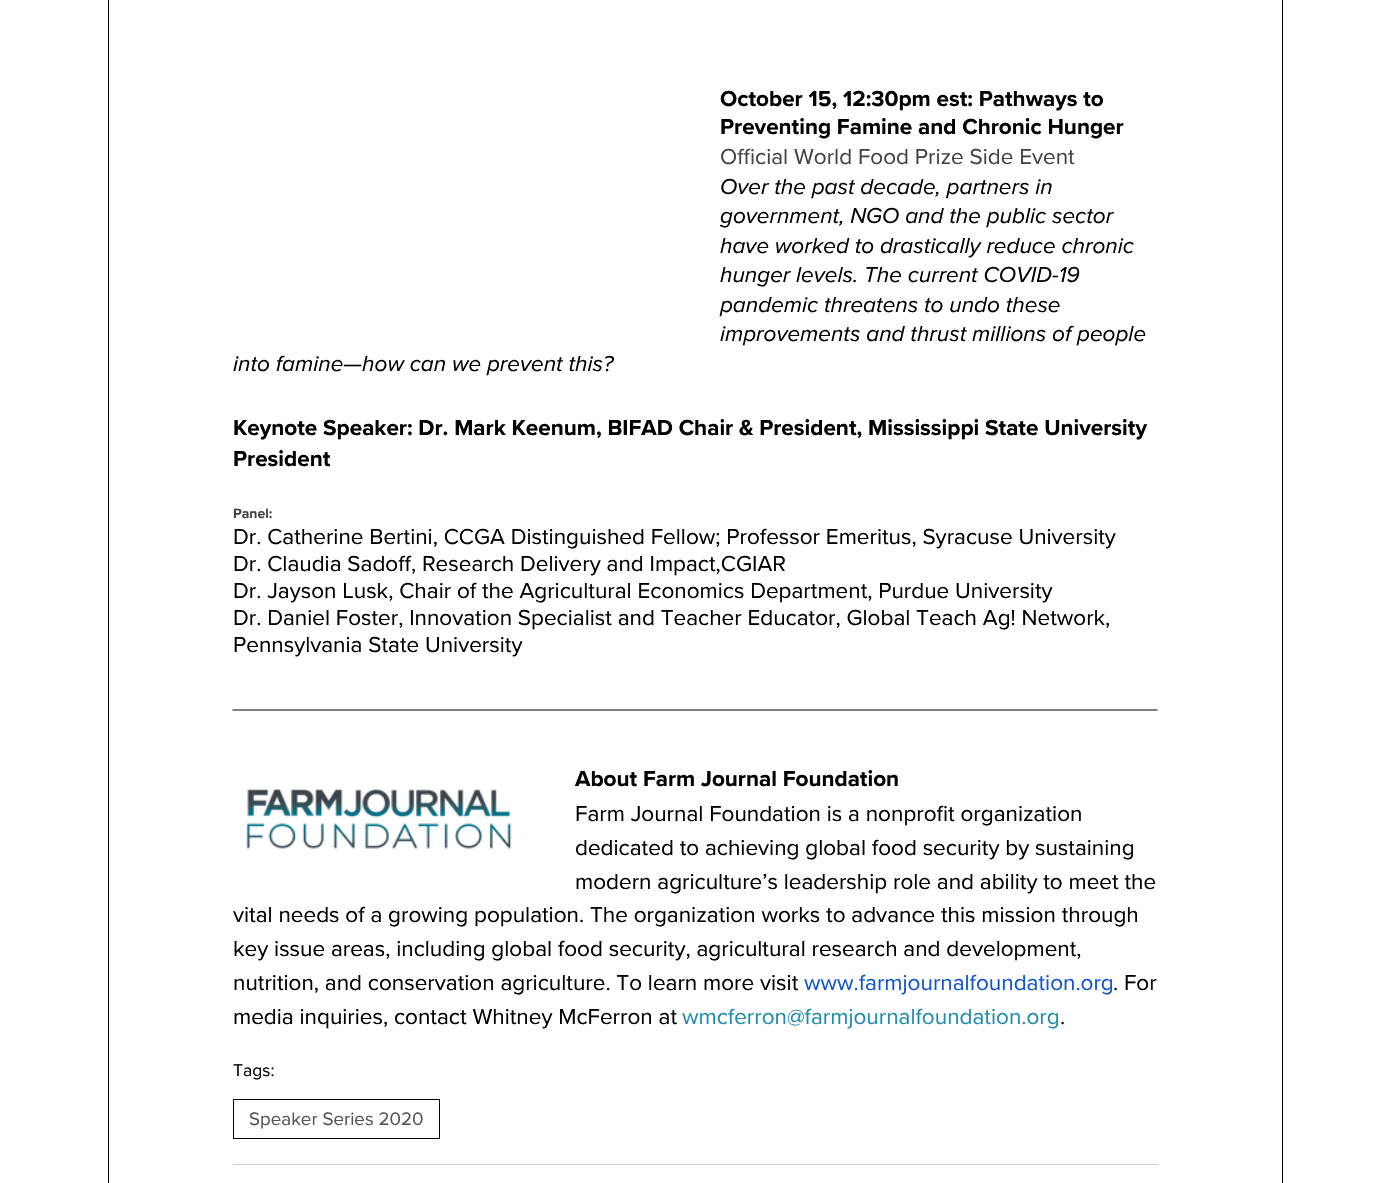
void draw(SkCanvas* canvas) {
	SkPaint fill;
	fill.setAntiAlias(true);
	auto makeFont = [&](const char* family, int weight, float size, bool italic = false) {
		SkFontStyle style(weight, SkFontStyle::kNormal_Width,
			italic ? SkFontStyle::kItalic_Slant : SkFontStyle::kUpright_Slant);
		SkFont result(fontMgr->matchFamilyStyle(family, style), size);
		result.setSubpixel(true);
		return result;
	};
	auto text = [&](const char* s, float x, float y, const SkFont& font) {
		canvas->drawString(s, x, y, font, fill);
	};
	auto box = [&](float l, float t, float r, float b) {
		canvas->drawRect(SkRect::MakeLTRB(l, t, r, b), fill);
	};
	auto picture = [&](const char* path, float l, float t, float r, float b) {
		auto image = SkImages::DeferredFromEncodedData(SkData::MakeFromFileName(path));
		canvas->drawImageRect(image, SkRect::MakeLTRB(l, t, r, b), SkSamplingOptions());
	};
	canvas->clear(0xFFFFFFFF);
	fill.setStyle(SkPaint::kStroke_Style);
	fill.setStrokeWidth(1);
	fill.setColor(0xFF000000);
	canvas->drawRect(SkRect::MakeLTRB(108.5f, -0.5f, 1282.5f, 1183.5f), fill);
	fill.setStrokeWidth(1.2f);
	canvas->drawPath(SkPathBuilder().moveTo(232.5f, 710).lineTo(1157.5f, 710).detach(), fill);
	picture("image0.png", 246, 788, 512, 849);
	fill.setStrokeWidth(1);
	canvas->drawRect(SkRect::MakeLTRB(233.5f, 1099.5f, 439.5f, 1138.5f), fill);
	fill.setStyle(SkPaint::kFill_Style);
	fill.setColor(0xFFCCCCCC);
	box(233, 1164, 1158, 1165);
	auto font1 = makeFont("Proxima Nova", 700, 22.5f);
	fill.setColor(0xFF000000);
	text("October 15, 12:30pm est: Pathways to", 720, 106, font1);
	text("Preventing Famine and Chronic Hunger", 720, 134, font1);
	auto font2 = makeFont("Proxima Nova", 400, 22.5f);
	fill.setColor(0xFF434343);
	text("Official World Food Prize Side Event", 720, 164, font2);
	auto font3 = makeFont("Proxima Nova", 400, 22.5f, true);
	fill.setColor(0xFF000000);
	text("Over the past decade, partners in", 720, 194, font3);
	text("government, NGO and the public sector", 720, 223, font3);
	text("have worked to drastically reduce chronic", 720, 253, font3);
	text("hunger levels. The current COVID-19", 720, 282, font3);
	text("pandemic threatens to undo these", 720, 312, font3);
	text("improvements and thrust millions of people", 720, 341, font3);
	text("into famine—how can we prevent this?", 233, 371, font3);
	text("Keynote Speaker: Dr. Mark Keenum, BIFAD Chair & President, Mississippi State University", 233, 435, font1);
	text("President", 233, 466, font1);
	auto font4 = makeFont("Proxima Nova", 700, 14);
	fill.setColor(0xFF434343);
	text("Panel:", 233, 518, font4);
	fill.setColor(0xFF000000);
	text("Dr. Catherine Bertini, CCGA Distinguished Fellow; Professor Emeritus, Syracuse University", 233, 544, font2);
	text("Dr. Claudia Sadoff, Research Delivery and Impact,CGIAR", 233, 571, font2);
	text("Dr. Jayson Lusk, Chair of the Agricultural Economics Department, Purdue University", 233, 598, font2);
	text("Dr. Daniel Foster, Innovation Specialist and Teacher Educator, Global Teach Ag! Network,", 233, 625, font2);
	text("Pennsylvania State University", 233, 652, font2);
	text("About Farm Journal Foundation", 575, 786, font1);
	text("Farm Journal Foundation is a nonprofit organization", 575, 821, font2);
	text("dedicated to achieving global food security by sustaining", 575, 855, font2);
	text("modern agriculture’s leadership role and ability to meet the", 575, 889, font2);
	text("vital needs of a growing population. The organization works to advance this mission through", 233, 922, font2);
	text("key issue areas, including global food security, agricultural research and development,", 233, 956, font2);
	text("nutrition, and conservation agriculture. To learn more visit", 233, 990, font2);
	fill.setColor(0xFF1155CC);
	text("www.farmjournalfoundation.org", 804, 990, font2);
	fill.setColor(0xFF000000);
	text(". For", 1113, 990, font2);
	text("media inquiries, contact Whitney McFerron at", 233, 1024, font2);
	fill.setColor(0xFF1F8CAD);
	text("wmcferron@farmjournalfoundation.org", 682, 1024, font2);
	fill.setColor(0xFF000000);
	text(".", 1060, 1024, font2);
	auto font5 = makeFont("Proxima Nova", 400, 17.5f);
	text("Tags:", 233, 1076, font5);
	auto font6 = makeFont("Proxima Nova", 400, 18.75f);
	fill.setColor(0xFF555555);
	text("Speaker Series 2020", 249, 1125, font6);
}
